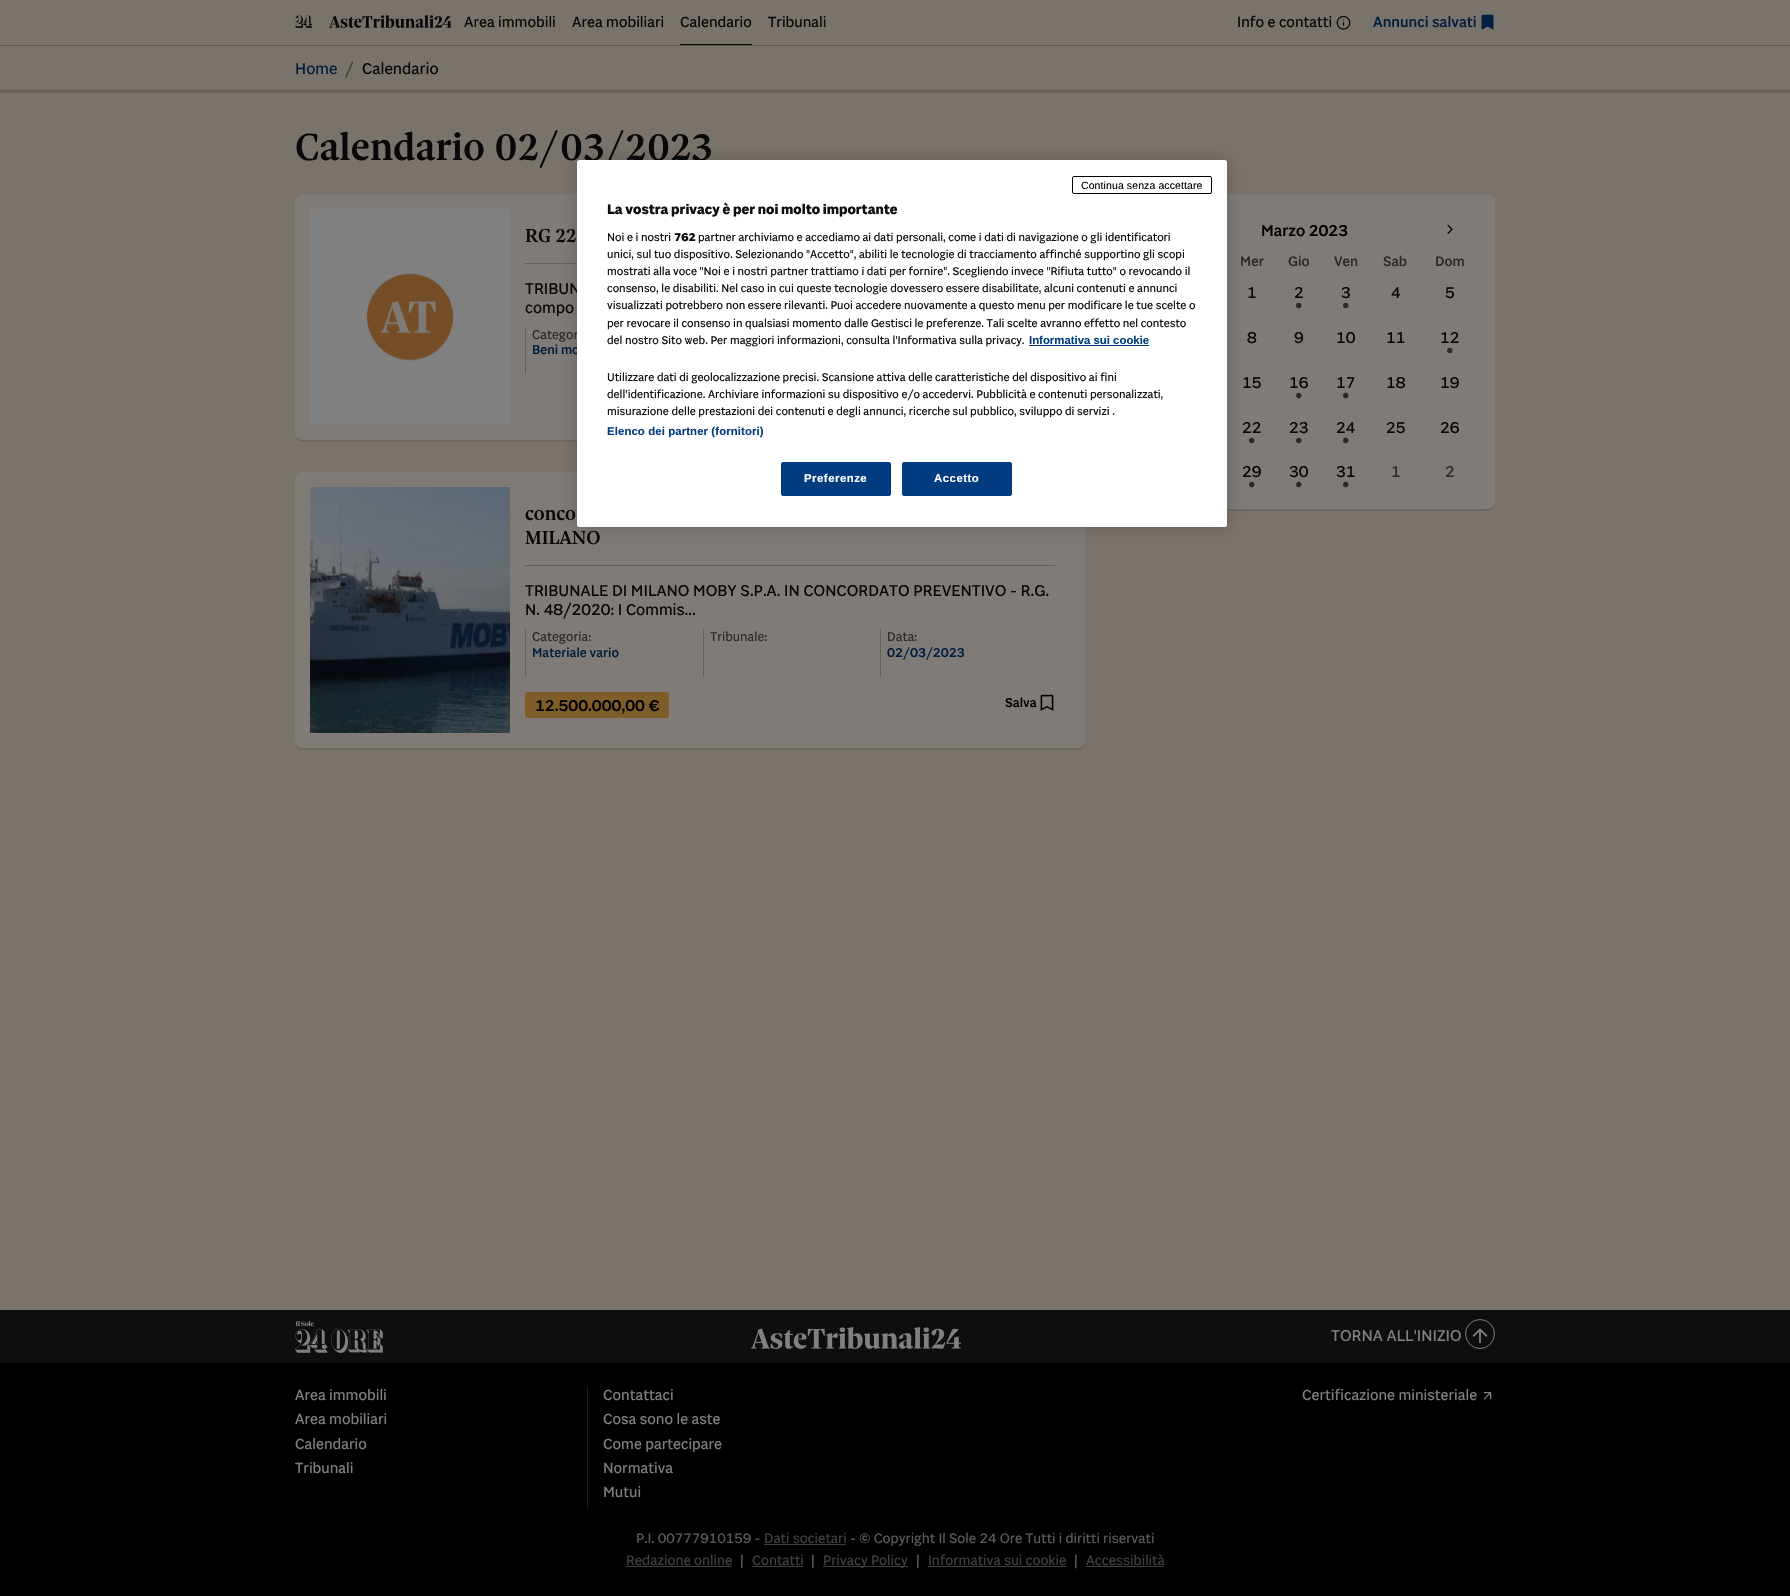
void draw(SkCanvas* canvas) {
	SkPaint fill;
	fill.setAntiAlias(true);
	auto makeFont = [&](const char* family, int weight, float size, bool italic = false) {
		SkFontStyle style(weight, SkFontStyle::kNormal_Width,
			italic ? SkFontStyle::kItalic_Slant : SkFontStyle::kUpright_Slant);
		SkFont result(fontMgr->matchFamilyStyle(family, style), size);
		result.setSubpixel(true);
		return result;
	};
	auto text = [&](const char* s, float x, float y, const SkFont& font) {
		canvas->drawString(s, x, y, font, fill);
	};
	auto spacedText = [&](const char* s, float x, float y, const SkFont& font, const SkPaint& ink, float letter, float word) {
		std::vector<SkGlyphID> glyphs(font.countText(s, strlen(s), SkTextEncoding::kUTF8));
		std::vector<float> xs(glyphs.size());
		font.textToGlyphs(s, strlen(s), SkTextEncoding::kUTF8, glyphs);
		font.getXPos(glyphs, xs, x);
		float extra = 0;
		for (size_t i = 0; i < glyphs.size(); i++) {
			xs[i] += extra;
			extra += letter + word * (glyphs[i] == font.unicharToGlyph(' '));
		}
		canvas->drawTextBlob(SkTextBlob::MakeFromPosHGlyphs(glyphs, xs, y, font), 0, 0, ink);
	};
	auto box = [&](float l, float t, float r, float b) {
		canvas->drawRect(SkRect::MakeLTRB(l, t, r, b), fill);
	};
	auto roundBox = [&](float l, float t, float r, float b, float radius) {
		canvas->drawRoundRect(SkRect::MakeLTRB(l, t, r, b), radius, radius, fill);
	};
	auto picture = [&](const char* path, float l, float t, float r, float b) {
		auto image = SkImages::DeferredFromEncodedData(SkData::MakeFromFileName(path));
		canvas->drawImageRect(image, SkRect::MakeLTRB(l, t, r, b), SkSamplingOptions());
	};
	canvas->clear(0xFF7A736B);
	fill.setColor(0xFF5E5852);
	box(0, 45, 1790, 46);
	picture("image0.png", 295, 15, 312, 28);
	picture("image1.png", 329, 15, 451, 28);
	fill.setColor(0xFF080808);
	box(680, 44, 752, 45);
	picture("image2.png", 1336, 15, 1351, 30);
	picture("image3.png", 1481, 14, 1494, 30);
	fill.setColor(0xFF6E6761);
	box(0, 91, 1790, 93);
	fill.setColor(0xFF5E5852);
	box(0, 90, 1790, 91);
	fill.setColor(0xFF6E6761);
	canvas->drawPath(SkPathBuilder().moveTo(295, 432).cubicTo(295, 437, 297, 442, 303, 442).lineTo(1077, 442).cubicTo(1083, 442, 1085, 437, 1085, 432).cubicTo(1085, 436, 1081, 440, 1077, 440).lineTo(303, 440).cubicTo(299, 440, 295, 436, 295, 432).close().detach(), fill);
	fill.setColor(0xFF807B76);
	roundBox(295, 194, 1085, 440, 8);
	picture("image4.png", 310, 209, 510, 425);
	fill.setColor(0xFF625E5B);
	box(525, 263, 577, 264);
	box(525, 327, 526, 374);
	fill.setColor(0xFF6E6761);
	canvas->drawPath(SkPathBuilder().moveTo(295, 740).cubicTo(295, 745, 297, 750, 303, 750).lineTo(1077, 750).cubicTo(1083, 750, 1085, 745, 1085, 740).cubicTo(1085, 744, 1081, 748, 1077, 748).lineTo(303, 748).cubicTo(299, 748, 295, 744, 295, 740).close().detach(), fill);
	fill.setColor(0xFF807B76);
	roundBox(295, 472, 1085, 748, 8);
	picture("image5.png", 310, 487, 510, 733);
	fill.setColor(0xFF625E5B);
	box(525, 565, 1055, 566);
	box(525, 629, 526, 676);
	box(703, 629, 704, 676);
	box(880, 629, 881, 676);
	fill.setColor(0xFF7F5D28);
	roundBox(525, 692, 669, 718, 3);
	picture("image6.png", 1040, 694, 1054, 711);
	fill.setColor(0xFF6E6761);
	canvas->drawPath(SkPathBuilder().moveTo(1115, 501).cubicTo(1115, 506, 1117, 511, 1123, 511).lineTo(1489, 511).cubicTo(1494, 510, 1495, 505, 1495, 501).cubicTo(1495, 505, 1491, 509, 1487, 509).lineTo(1123, 509).cubicTo(1119, 509, 1115, 505, 1115, 501).close().detach(), fill);
	fill.setColor(0xFF807B76);
	roundBox(1115, 194, 1495, 509, 8);
	picture("image7.png", 1447, 224, 1453, 234);
	fill.setColor(0xFF0E0E0E);
	box(0, 1310, 1790, 1363);
	picture("image8.png", 295, 1321, 383, 1353);
	picture("image9.png", 751, 1327, 961, 1349);
	fill.setStyle(SkPaint::kStroke_Style);
	fill.setStrokeWidth(1);
	fill.setColor(0xFF808080);
	canvas->drawCircle(1480, 1334, 14.5f, fill);
	picture("image10.png", 1472, 1328, 1488, 1344);
	fill.setStyle(SkPaint::kFill_Style);
	fill.setColor(0xFF000000);
	box(0, 1363, 1790, 1596);
	fill.setColor(0xFF1A1D20);
	box(587, 1386, 588, 1508);
	picture("image11.png", 1483, 1392, 1492, 1400);
	fill.setColor(0xFF3F3F3F);
	box(764, 1544, 846, 1545);
	box(626, 1566, 732, 1567);
	box(752, 1566, 803, 1567);
	box(823, 1566, 908, 1567);
	box(928, 1566, 1066, 1567);
	box(1086, 1566, 1164, 1567);
	fill.setColor(0x33000000);
	fill.setMaskFilter(SkMaskFilter::MakeBlur(kNormal_SkBlurStyle, 9));
	canvas->drawRoundRect(SkRect::MakeLTRB(577, 160, 1227, 527), 2.5f, 2.5f, fill);
	fill.setMaskFilter(nullptr);
	auto font1 = makeFont("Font", 400, 15);
	fill.setColor(0xFF080808);
	text("Area immobili", 464, 27, font1);
	text("Area mobiliari", 572, 27, font1);
	text("Calendario", 680, 27, font1);
	text("Tribunali", 768, 27, font1);
	text("Info e contatti", 1237, 27, font1);
	auto font2 = makeFont("Font", 500, 15);
	fill.setColor(0xFF001E40);
	text("Annunci salvati", 1373, 27, font2);
	auto font3 = makeFont("Font", 400, 16);
	text("Home", 295, 74, font3);
	fill.setColor(0xFF363B3F);
	text("/", 345, 74, font3);
	fill.setColor(0xFF080808);
	text("Calendario", 362, 74, font3);
	auto font4 = makeFont("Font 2", 500, 40);
	text("Calendario 02/03/2023", 295, 160, font4);
	auto font5 = makeFont("Font 2", 500, 20);
	text("RG 22", 525, 242, font5);
	text("TRIBUN", 525, 294, font3);
	text("compo", 525, 313, font3);
	auto font6 = makeFont("Font", 400, 13);
	fill.setColor(0xFF2C2A29);
	text("Categor", 532, 339, font6);
	auto font7 = makeFont("Font", 500, 13);
	fill.setColor(0xFF001E40);
	text("Beni mo", 532, 354, font7);
	fill.setColor(0xFF080808);
	text("conco", 525, 520, font5);
	text("MILANO", 525, 544, font5);
	text("TRIBUNALE DI MILANO MOBY S.P.A. IN CONCORDATO PREVENTIVO - R.G.", 525, 596, font3);
	text("N. 48/2020: I Commis...", 525, 615, font3);
	fill.setColor(0xFF2C2A29);
	text("Categoria:", 532, 641, font6);
	fill.setColor(0xFF001E40);
	text("Materiale vario", 532, 657, font7);
	fill.setColor(0xFF2C2A29);
	text("Tribunale:", 710, 641, font6);
	text("Data:", 887, 641, font6);
	fill.setColor(0xFF001E40);
	text("02/03/2023", 887, 657, font7);
	auto font8 = makeFont("Font", 500, 16);
	fill.setColor(0xFF000000);
	text("12.500.000,00 €", 535, 711, font8);
	text("Salva", 1005, 707, font7);
	text("Marzo 2023", 1261, 236, font8);
	auto font9 = makeFont("Font", 500, 14);
	fill.setColor(0xFF2C2A29);
	text("Mer", 1240, 266, font9);
	text("Gio", 1288, 266, font9);
	text("Ven", 1334, 266, font9);
	text("Sab", 1383, 266, font9);
	text("Dom", 1435, 266, font9);
	fill.setColor(0xFF080808);
	text("1", 1247, 298, font3);
	text("2", 1294, 298, font3);
	fill.setColor(0xFF2C2A29);
	text("•", 1295, 311, font3);
	fill.setColor(0xFF080808);
	text("3", 1341, 298, font3);
	fill.setColor(0xFF2C2A29);
	text("•", 1342, 311, font3);
	fill.setColor(0xFF080808);
	text("4", 1391, 298, font3);
	text("5", 1445, 298, font3);
	text("8", 1247, 343, font3);
	text("9", 1294, 343, font3);
	text("10", 1336, 343, font3);
	text("11", 1386, 343, font3);
	text("12", 1440, 343, font3);
	fill.setColor(0xFF2C2A29);
	text("•", 1446, 356, font3);
	fill.setColor(0xFF080808);
	text("15", 1242, 388, font3);
	text("16", 1289, 388, font3);
	fill.setColor(0xFF2C2A29);
	text("•", 1295, 401, font3);
	fill.setColor(0xFF080808);
	text("17", 1336, 388, font3);
	fill.setColor(0xFF2C2A29);
	text("•", 1342, 401, font3);
	fill.setColor(0xFF080808);
	text("18", 1386, 388, font3);
	text("19", 1440, 388, font3);
	text("22", 1242, 433, font3);
	fill.setColor(0xFF2C2A29);
	text("•", 1248, 446, font3);
	fill.setColor(0xFF080808);
	text("23", 1289, 433, font3);
	fill.setColor(0xFF2C2A29);
	text("•", 1295, 446, font3);
	fill.setColor(0xFF080808);
	text("24", 1336, 433, font3);
	fill.setColor(0xFF2C2A29);
	text("•", 1342, 446, font3);
	fill.setColor(0xFF080808);
	text("25", 1386, 433, font3);
	text("26", 1440, 433, font3);
	text("29", 1242, 477, font3);
	fill.setColor(0xFF2C2A29);
	text("•", 1248, 490, font3);
	fill.setColor(0xFF080808);
	text("30", 1289, 477, font3);
	fill.setColor(0xFF2C2A29);
	text("•", 1295, 490, font3);
	fill.setColor(0xFF080808);
	text("31", 1336, 477, font3);
	fill.setColor(0xFF2C2A29);
	text("•", 1342, 490, font3);
	text("1", 1391, 477, font3);
	text("2", 1445, 477, font3);
	fill.setColor(0xFF808080);
	text("TORNA ALL'INIZIO", 1331, 1341, font3);
	text("Area immobili", 295, 1400, font1);
	text("Area mobiliari", 295, 1424, font1);
	text("Calendario", 295, 1449, font1);
	text("Tribunali", 295, 1473, font1);
	text("Contattaci", 603, 1400, font1);
	text("Cosa sono le aste", 603, 1424, font1);
	text("Come partecipare", 603, 1449, font1);
	text("Normativa", 603, 1473, font1);
	text("Mutui", 603, 1497, font1);
	text("Certificazione ministeriale", 1302, 1400, font1);
	auto font10 = makeFont("Font", 400, 14);
	fill.setColor(0xFF5A5A5A);
	text("P.I. 00777910159 -", 636, 1543, font10);
	fill.setColor(0xFF3F3F3F);
	text("Dati societari", 764, 1543, font10);
	fill.setColor(0xFF5A5A5A);
	text("- © Copyright Il Sole 24 Ore Tutti i diritti riservati", 850, 1543, font10);
	fill.setColor(0xFF3F3F3F);
	text("Redazione online", 626, 1565, font10);
	fill.setColor(0xFF5A5A5A);
	text("|", 740, 1565, font10);
	fill.setColor(0xFF3F3F3F);
	text("Contatti", 752, 1565, font10);
	fill.setColor(0xFF5A5A5A);
	text("|", 811, 1565, font10);
	fill.setColor(0xFF3F3F3F);
	text("Privacy Policy", 823, 1565, font10);
	fill.setColor(0xFF5A5A5A);
	text("|", 916, 1565, font10);
	fill.setColor(0xFF3F3F3F);
	text("Informativa sui cookie", 928, 1565, font10);
	fill.setColor(0xFF5A5A5A);
	text("|", 1074, 1565, font10);
	fill.setColor(0xFF3F3F3F);
	text("Accessibilità", 1086, 1565, font10);
	fill.setColor(0xFFFFFFFF);
	roundBox(577, 160, 1227, 527, 2.5f);
	fill.setStyle(SkPaint::kStroke_Style);
	fill.setColor(0xFF000000);
	canvas->drawRoundRect(SkRect::MakeLTRB(1072.5f, 176.5f, 1211.5f, 193.5f), 1.5f, 1.5f, fill);
	auto font11 = makeFont("Liberation Sans", 400, 10.5f);
	fill.setStyle(SkPaint::kFill_Style);
	spacedText("Continua senza accettare", 1081, 189, font11, fill, 0.1f, 0);
	auto font12 = makeFont("Font", 700, 14);
	fill.setColor(0xFF0F0F0F);
	text("La vostra privacy è per noi molto importante", 607, 214, font12);
	auto font13 = makeFont("Font", 400, 11.38f);
	text("Noi e i nostri", 607, 241, font13);
	auto font14 = makeFont("Font", 700, 11.38f);
	text("762", 674, 241, font14);
	text("partner archiviamo e accediamo ai dati personali, come i dati di navigazione o gli identificatori", 698, 241, font13);
	text("unici, sul tuo dispositivo. Selezionando \"Accetto\", abiliti le tecnologie di tracciamento affinché supportino gli scopi", 607, 258, font13);
	text("mostrati alla voce \"Noi e i nostri partner trattiamo i dati per fornire\". Scegliendo invece \"Rifiuta tutto\" o revocando il", 607, 275, font13);
	text("consenso, le disabiliti. Nel caso in cui queste tecnologie dovessero essere disabilitate, alcuni contenuti e annunci", 607, 292, font13);
	text("visualizzati potrebbero non essere rilevanti. Puoi accedere nuovamente a questo menu per modificare le tue scelte o", 607, 309, font13);
	text("per revocare il consenso in qualsiasi momento dalle Gestisci le preferenze. Tali scelte avranno effetto nel contesto", 607, 327, font13);
	text("del nostro Sito web. Per maggiori informazioni, consulta l'Informativa sulla privacy.", 607, 344, font13);
	auto font15 = makeFont("Liberation Sans", 700, 11.38f);
	fill.setColor(0xFF003C7F);
	text("Informativa sui cookie", 1029, 344, font15);
	box(1029, 345, 1149, 346);
	fill.setColor(0xFF0F0F0F);
	text("Utilizzare dati di geolocalizzazione precisi. Scansione attiva delle caratteristiche del dispositivo ai fini", 607, 381, font13);
	text("dell’identificazione. Archiviare informazioni su dispositivo e/o accedervi. Pubblicità e contenuti personalizzati,", 607, 398, font13);
	text("misurazione delle prestazioni dei contenuti e degli annunci, ricerche sul pubblico, sviluppo di servizi .", 607, 415, font13);
	fill.setColor(0xFF003C7F);
	spacedText("Elenco dei partner (fornitori)", 607, 435, font15, fill, 0.1f, 0);
	canvas->drawRoundRect(SkRect::MakeLTRB(781.5f, 462.5f, 890.5f, 495.5f), 1.5f, 1.5f, fill);
	fill.setStyle(SkPaint::kStroke_Style);
	canvas->drawRoundRect(SkRect::MakeLTRB(781.5f, 462.5f, 890.5f, 495.5f), 1.5f, 1.5f, fill);
	fill.setStyle(SkPaint::kFill_Style);
	fill.setColor(0xFFFFFFFF);
	spacedText("Preferenze", 804, 482, font15, fill, 0.5f, 0);
	fill.setColor(0xFF003C7F);
	canvas->drawRoundRect(SkRect::MakeLTRB(902.5f, 462.5f, 1011.5f, 495.5f), 1.5f, 1.5f, fill);
	fill.setStyle(SkPaint::kStroke_Style);
	canvas->drawRoundRect(SkRect::MakeLTRB(902.5f, 462.5f, 1011.5f, 495.5f), 1.5f, 1.5f, fill);
	fill.setStyle(SkPaint::kFill_Style);
	fill.setColor(0xFFFFFFFF);
	spacedText("Accetto", 934, 482, font15, fill, 0.5f, 0);
}
